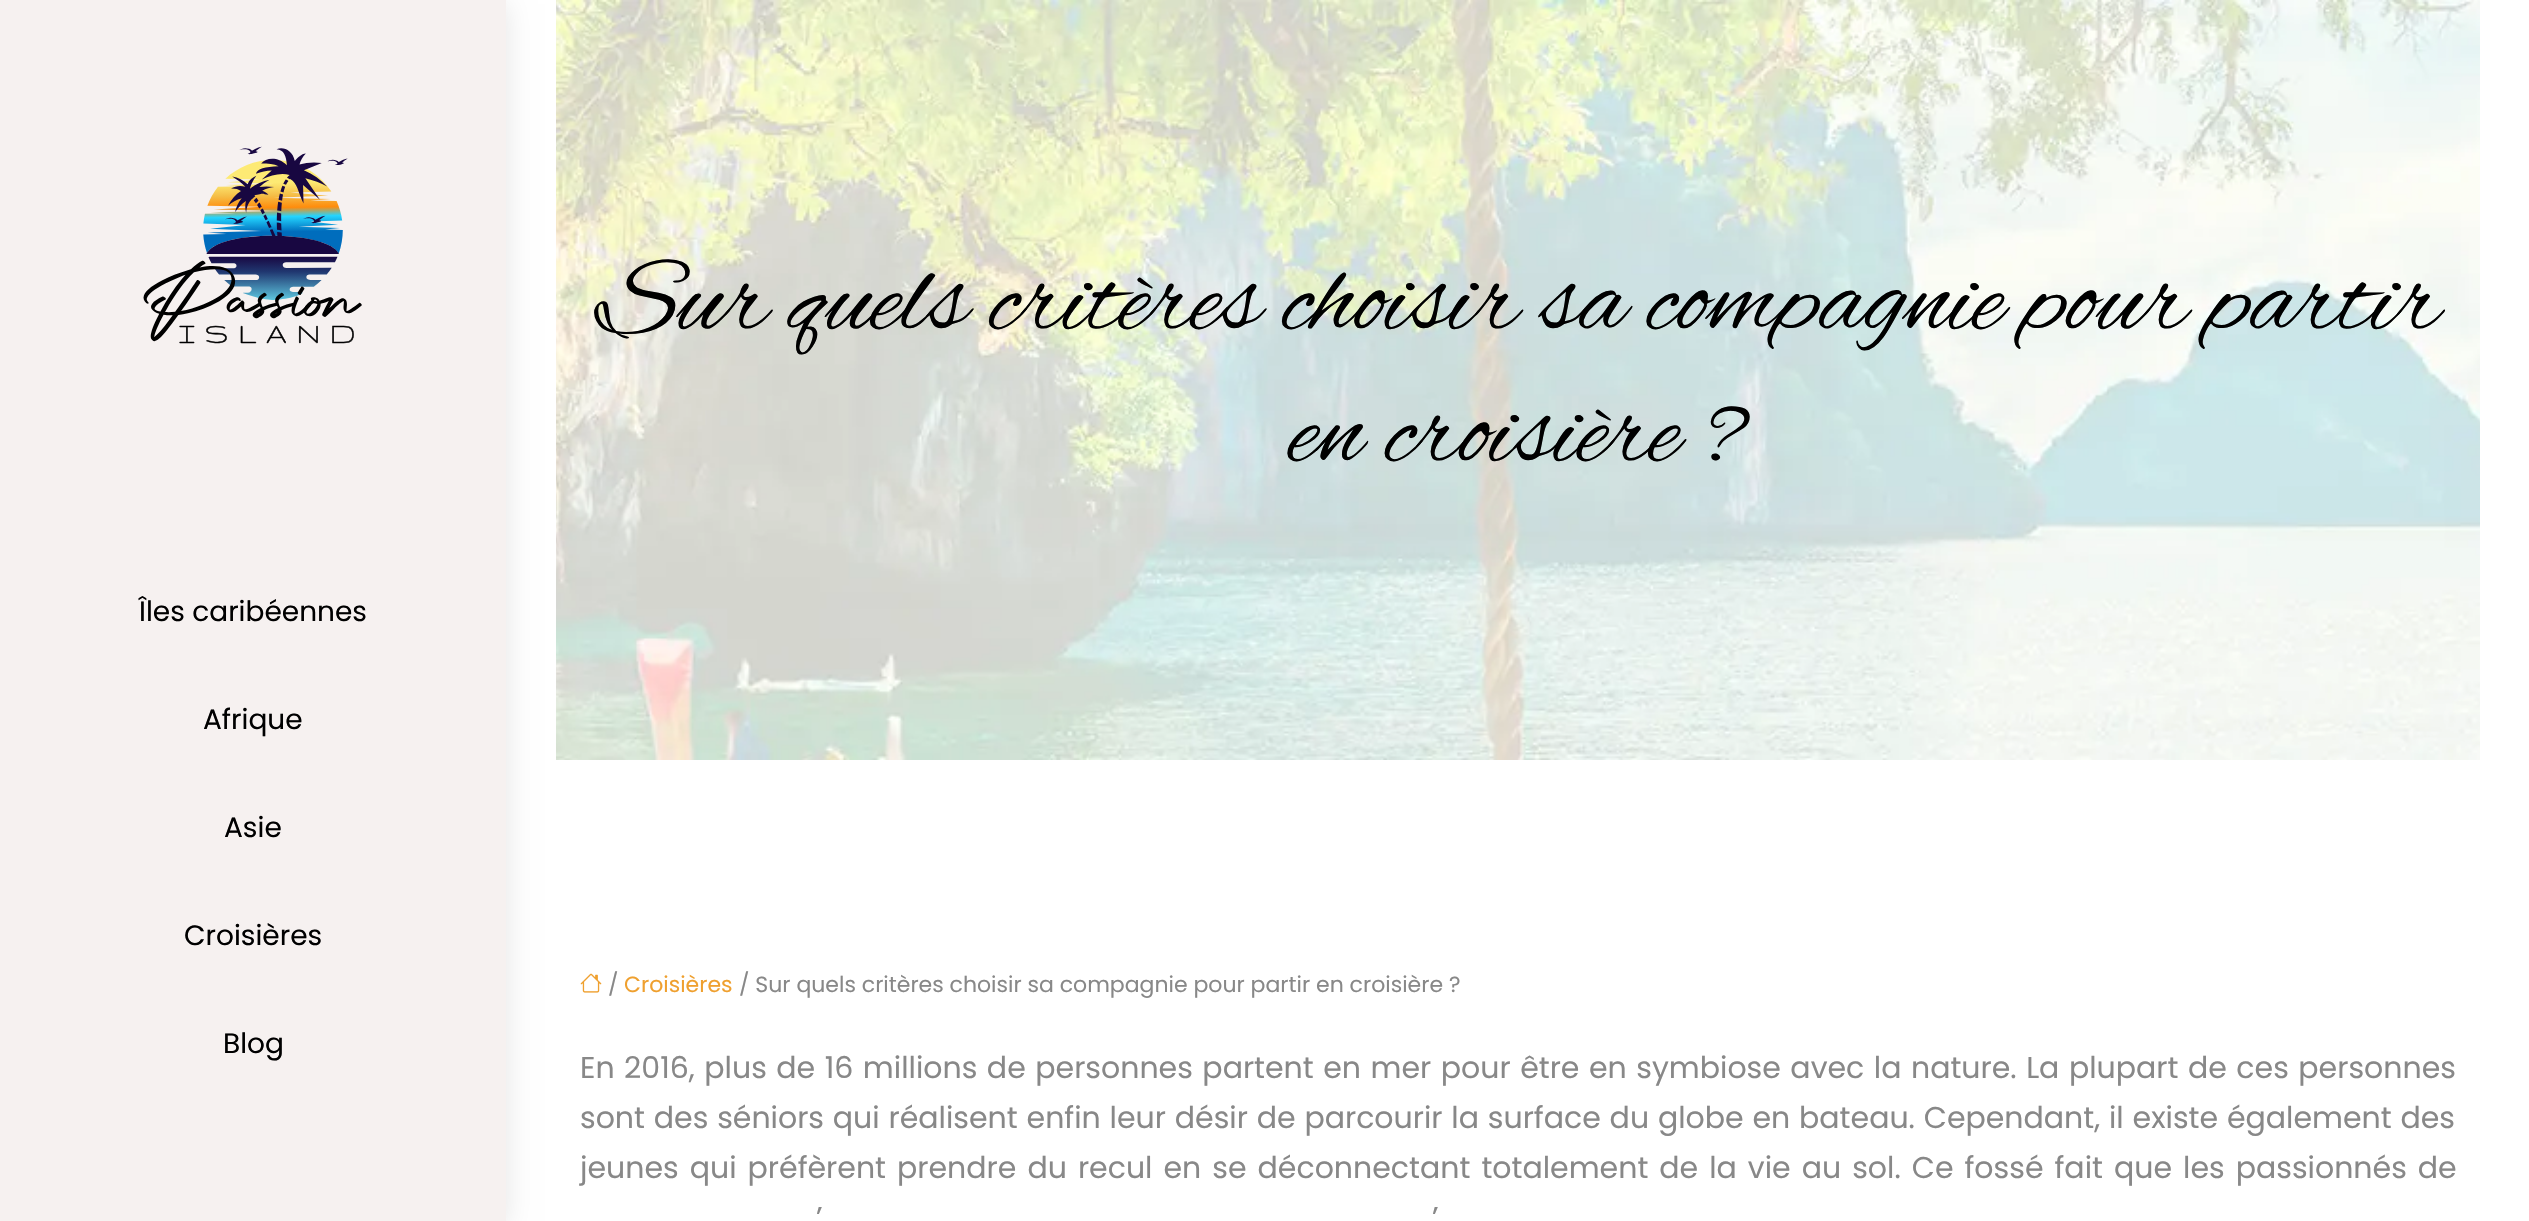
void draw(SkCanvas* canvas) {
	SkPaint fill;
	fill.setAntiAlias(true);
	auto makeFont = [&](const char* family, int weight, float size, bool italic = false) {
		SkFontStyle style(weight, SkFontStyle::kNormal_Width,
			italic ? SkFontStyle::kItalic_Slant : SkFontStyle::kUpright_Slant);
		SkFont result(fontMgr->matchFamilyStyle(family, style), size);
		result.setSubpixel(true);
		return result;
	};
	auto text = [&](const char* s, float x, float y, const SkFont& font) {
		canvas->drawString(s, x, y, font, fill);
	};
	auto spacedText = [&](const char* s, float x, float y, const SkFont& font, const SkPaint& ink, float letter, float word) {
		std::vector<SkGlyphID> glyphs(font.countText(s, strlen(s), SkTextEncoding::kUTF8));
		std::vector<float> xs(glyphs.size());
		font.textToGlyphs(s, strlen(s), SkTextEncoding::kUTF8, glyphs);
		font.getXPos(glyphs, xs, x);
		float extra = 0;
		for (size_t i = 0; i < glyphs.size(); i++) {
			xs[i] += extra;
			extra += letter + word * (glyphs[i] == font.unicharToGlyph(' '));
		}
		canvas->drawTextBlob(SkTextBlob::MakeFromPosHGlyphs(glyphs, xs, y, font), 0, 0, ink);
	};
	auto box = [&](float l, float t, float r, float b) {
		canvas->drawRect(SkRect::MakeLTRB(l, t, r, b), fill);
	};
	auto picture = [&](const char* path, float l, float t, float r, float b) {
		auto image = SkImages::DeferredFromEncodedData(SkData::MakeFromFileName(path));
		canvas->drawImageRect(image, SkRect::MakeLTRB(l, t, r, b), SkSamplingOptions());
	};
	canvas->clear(0xFFFFFFFF);
	fill.setColor(0x1A000000);
	fill.setMaskFilter(SkMaskFilter::MakeBlur(kNormal_SkBlurStyle, 13));
	canvas->drawRect(SkRect::MakeLTRB(0, 4, 506, 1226), fill);
	fill.setMaskFilter(nullptr);
	fill.setColor(0xFFF6F1F0);
	box(0, 0, 506, 1221);
	picture("image0.png", 143, 146, 362, 344);
	picture("image1.png", 556, 0, 2480, 760);
	picture("image2.png", 580, 973, 602, 993);
	auto font1 = makeFont("Poppins", 400, 28);
	fill.setColor(0xFF000000);
	text("Îles caribéennes", 139, 621, font1);
	text("Afrique", 203, 729, font1);
	text("Asie", 224, 837, font1);
	text("Croisières", 184, 945, font1);
	text("Blog", 223, 1053, font1);
	auto font2 = makeFont("Alex Brush", 400, 110);
	text("Sur quels critères choisir sa compagnie pour partir", 596, 328, font2);
	text("en croisière ?", 1291, 460, font2);
	auto font3 = makeFont("Poppins", 400, 22);
	fill.setColor(0xFF888888);
	text("/", 608, 992, font3);
	fill.setColor(0xFFEFA02F);
	text("Croisières", 624, 992, font3);
	fill.setColor(0xFF888888);
	text("/ Sur quels critères choisir sa compagnie pour partir en croisière ?", 739, 992, font3);
	auto font4 = makeFont("Poppins", 400, 30);
	spacedText("En 2016, plus de 16 millions de personnes partent en mer pour être en symbiose avec la nature. La plupart de ces personnes", 580, 1078, font4, fill, 0, 1.5f);
	spacedText("sont des séniors qui réalisent enfin leur désir de parcourir la surface du globe en bateau. Cependant, il existe également des", 580, 1128, font4, fill, 0, 0.8f);
	spacedText("jeunes qui préfèrent prendre du recul en se déconnectant totalement de la vie au sol. Ce fossé fait que les passionnés de", 580, 1178, font4, fill, 0, 3);
	text("’", 816, 1228, font4);
	text("’", 1432, 1228, font4);
}
